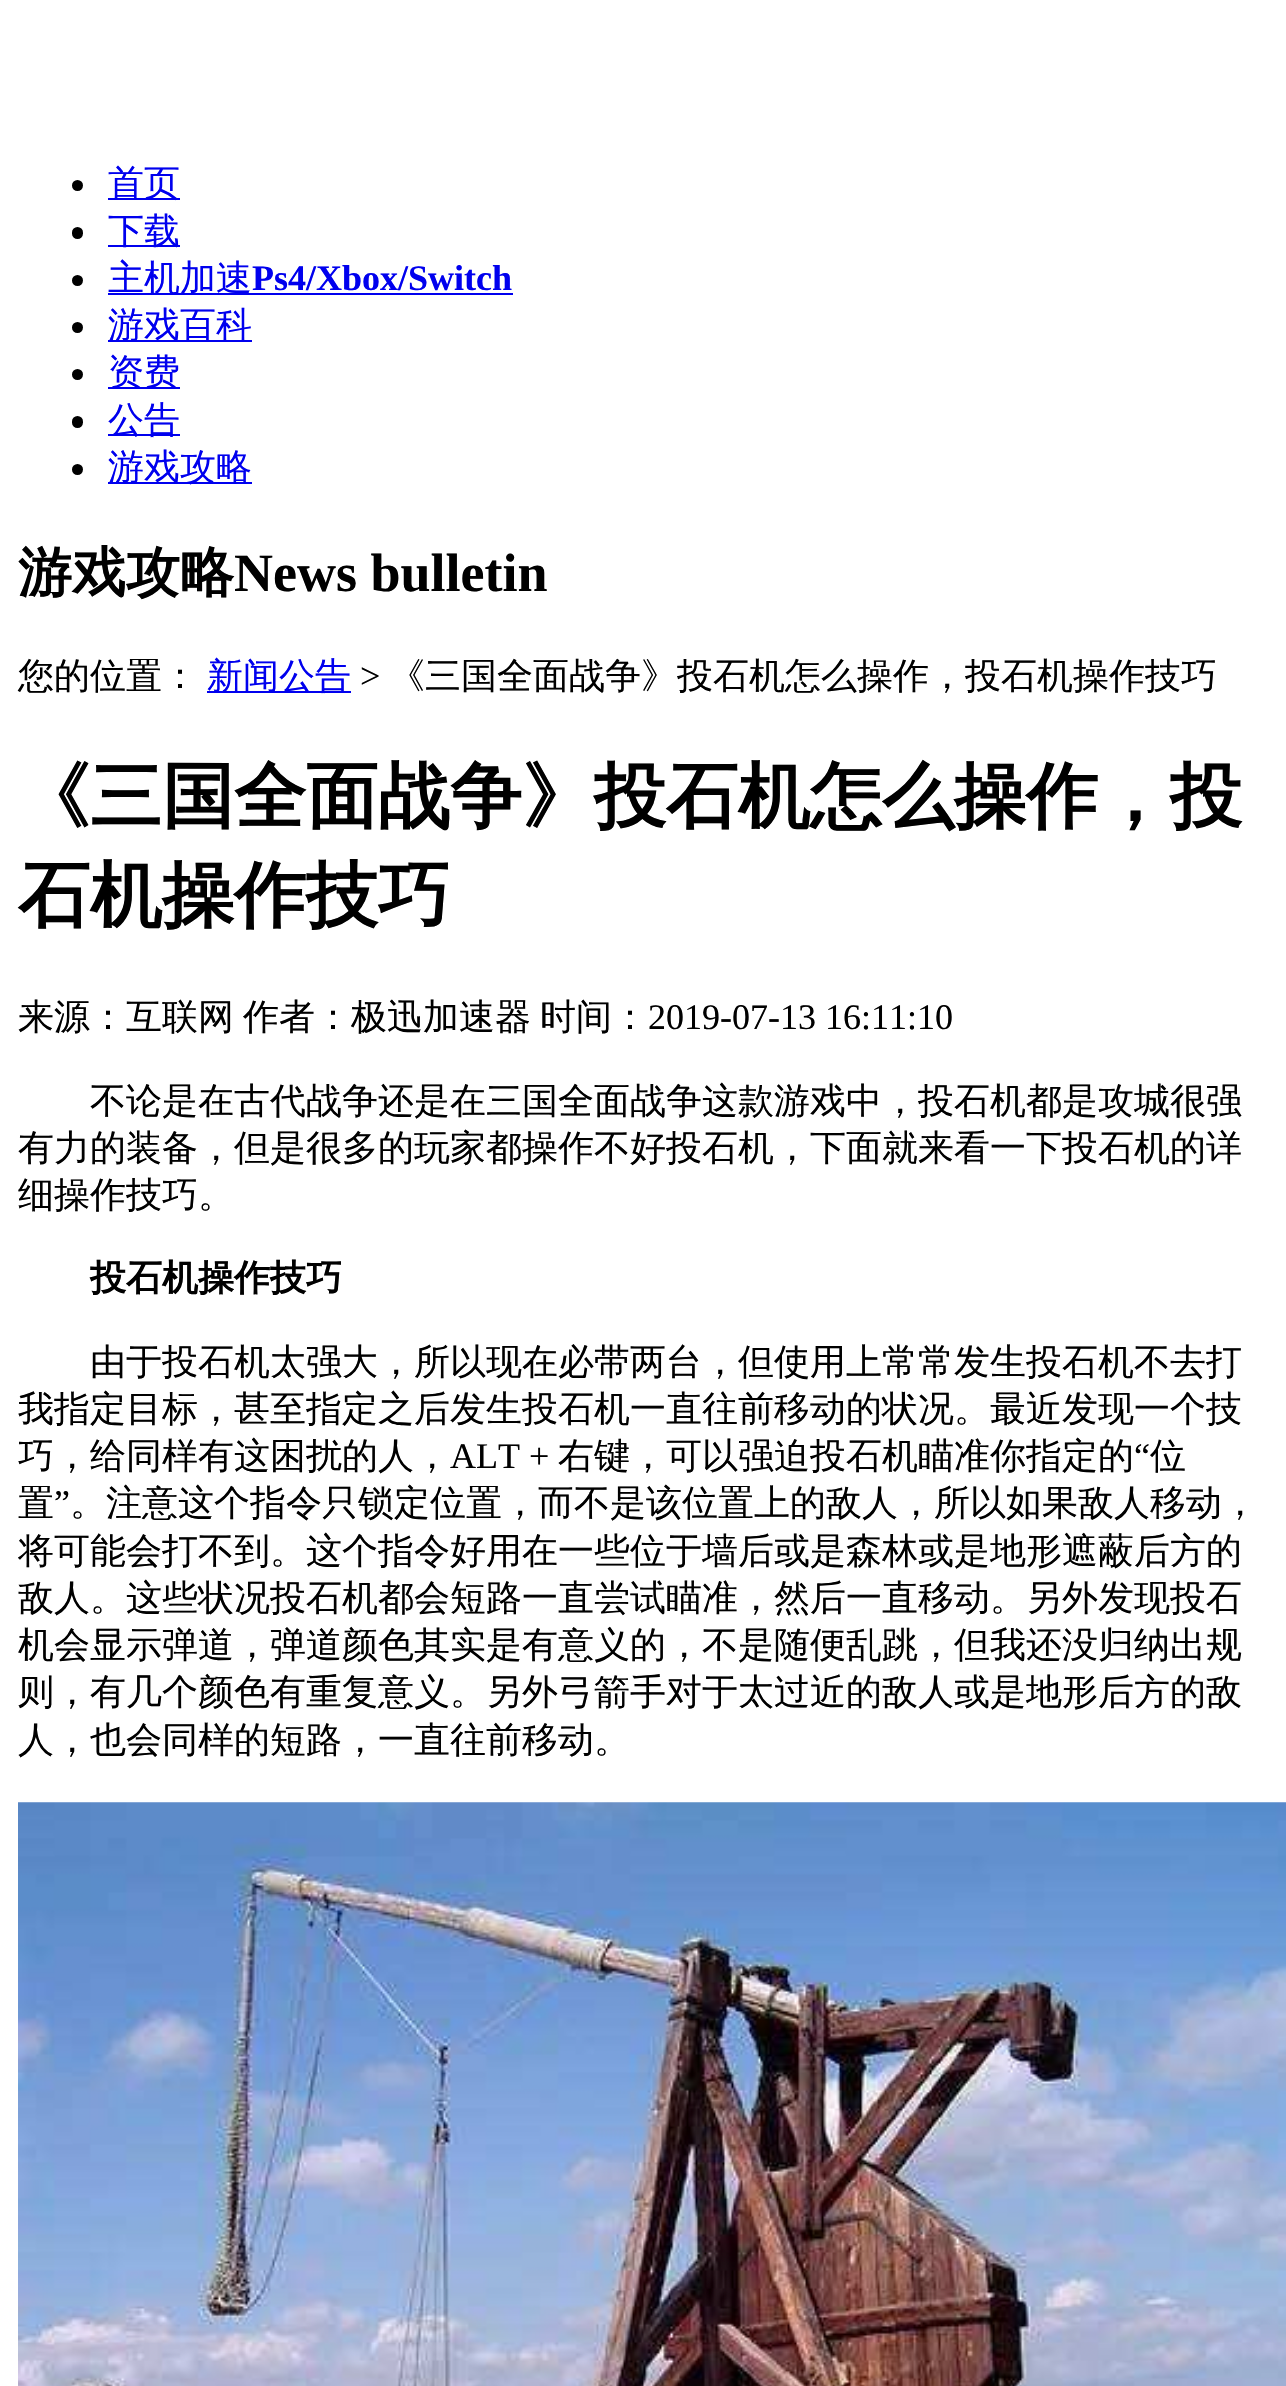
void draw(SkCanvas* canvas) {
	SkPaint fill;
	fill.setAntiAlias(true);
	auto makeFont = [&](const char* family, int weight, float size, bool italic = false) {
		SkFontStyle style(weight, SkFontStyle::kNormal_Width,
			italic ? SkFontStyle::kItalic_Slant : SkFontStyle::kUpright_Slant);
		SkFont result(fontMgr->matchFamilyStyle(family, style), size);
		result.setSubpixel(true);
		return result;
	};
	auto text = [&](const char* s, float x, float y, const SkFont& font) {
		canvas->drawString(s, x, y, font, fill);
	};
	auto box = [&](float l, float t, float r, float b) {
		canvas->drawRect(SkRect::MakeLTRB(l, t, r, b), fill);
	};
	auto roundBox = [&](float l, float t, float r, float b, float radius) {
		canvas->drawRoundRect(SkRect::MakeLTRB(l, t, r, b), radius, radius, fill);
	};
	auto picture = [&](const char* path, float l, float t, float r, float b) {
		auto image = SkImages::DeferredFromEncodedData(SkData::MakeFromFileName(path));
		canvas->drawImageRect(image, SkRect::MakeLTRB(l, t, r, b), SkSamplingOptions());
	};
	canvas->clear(0xFFFFFFFF);
	fill.setColor(0xFF000000);
	canvas->drawCircle(77.5f, 185.5f, 5.5f, fill);
	fill.setColor(0xFF0000EE);
	box(108, 198, 180, 200);
	fill.setColor(0xFF000000);
	roundBox(72, 227, 83, 239, 5.5f);
	fill.setColor(0xFF0000EE);
	box(108, 245, 180, 247);
	fill.setColor(0xFF000000);
	canvas->drawCircle(77.5f, 280.5f, 5.5f, fill);
	fill.setColor(0xFF0000EE);
	box(108, 293, 513, 295);
	fill.setColor(0xFF000000);
	canvas->drawCircle(77.5f, 327.5f, 5.5f, fill);
	fill.setColor(0xFF0000EE);
	box(108, 340, 252, 342);
	fill.setColor(0xFF000000);
	canvas->drawCircle(77.5f, 374.5f, 5.5f, fill);
	fill.setColor(0xFF0000EE);
	box(108, 387, 180, 389);
	fill.setColor(0xFF000000);
	roundBox(72, 416, 83, 428, 5.5f);
	fill.setColor(0xFF0000EE);
	box(108, 434, 180, 436);
	fill.setColor(0xFF000000);
	canvas->drawCircle(77.5f, 469.5f, 5.5f, fill);
	fill.setColor(0xFF0000EE);
	box(108, 482, 252, 484);
	box(207, 691, 351, 693);
	picture("image0.png", 18, 1802, 1286, 2386);
	auto font1 = makeFont("WenQuanYi Zen Hei", 500, 36);
	text("首页", 108, 195, font1);
	text("下载", 108, 243, font1);
	text("主机加速", 108, 290, font1);
	auto font2 = makeFont("Liberation Serif", 700, 36);
	text("Ps4/Xbox/Switch", 252, 290, font2);
	text("游戏百科", 108, 337, font1);
	text("资费", 108, 384, font1);
	text("公告", 108, 432, font1);
	text("游戏攻略", 108, 479, font1);
	auto font3 = makeFont("WenQuanYi Zen Hei", 700, 54);
	fill.setColor(0xFF000000);
	text("游戏攻略", 18, 591, font3);
	auto font4 = makeFont("Liberation Serif", 700, 54);
	text("News bulletin", 234, 591, font4);
	text("您的位置：", 18, 688, font1);
	fill.setColor(0xFF0000EE);
	text("新闻公告", 207, 688, font1);
	auto font5 = makeFont("Liberation Serif", 400, 36);
	fill.setColor(0xFF000000);
	text(">", 360, 688, font5);
	text("《三国全面战争》投石机怎么操作，投石机操作技巧", 389, 688, font1);
	auto font6 = makeFont("WenQuanYi Zen Hei", 700, 72);
	text("《三国全面战争》投石机怎么操作，投", 18, 821, font6);
	text("石机操作技巧", 18, 920, font6);
	text("来源：互联网", 18, 1029, font1);
	text("作者：极迅加速器", 243, 1029, font1);
	text("时间：", 540, 1029, font1);
	text("2019-07-13 16:11:10", 648, 1029, font5);
	text("不论是在古代战争还是在三国全面战争这款游戏中，投石机都是攻城很强", 90, 1113, font1);
	text("有力的装备，但是很多的玩家都操作不好投石机，下面就来看一下投石机的详", 18, 1160, font1);
	text("细操作技巧。", 18, 1207, font1);
	auto font7 = makeFont("WenQuanYi Zen Hei", 700, 36);
	text("投石机操作技巧", 90, 1290, font7);
	text("由于投石机太强大，所以现在必带两台，但使用上常常发生投石机不去打", 90, 1374, font1);
	text("我指定目标，甚至指定之后发生投石机一直往前移动的状况。最近发现一个技", 18, 1421, font1);
	text("巧，给同样有这困扰的人，", 18, 1468, font1);
	text("ALT +", 450, 1468, font5);
	text("右键，可以强迫投石机瞄准你指定的", 558, 1468, font1);
	text("“", 1134, 1468, font5);
	text("位", 1150, 1468, font1);
	text("置", 18, 1515, font1);
	text("”", 54, 1515, font5);
	text("。注意这个指令只锁定位置，而不是该位置上的敌人，所以如果敌人移动，", 70, 1515, font1);
	text("将可能会打不到。这个指令好用在一些位于墙后或是森林或是地形遮蔽后方的", 18, 1563, font1);
	text("敌人。这些状况投石机都会短路一直尝试瞄准，然后一直移动。另外发现投石", 18, 1610, font1);
	text("机会显示弹道，弹道颜色其实是有意义的，不是随便乱跳，但我还没归纳出规", 18, 1657, font1);
	text("则，有几个颜色有重复意义。另外弓箭手对于太过近的敌人或是地形后方的敌", 18, 1704, font1);
	text("人，也会同样的短路，一直往前移动。", 18, 1752, font1);
}
